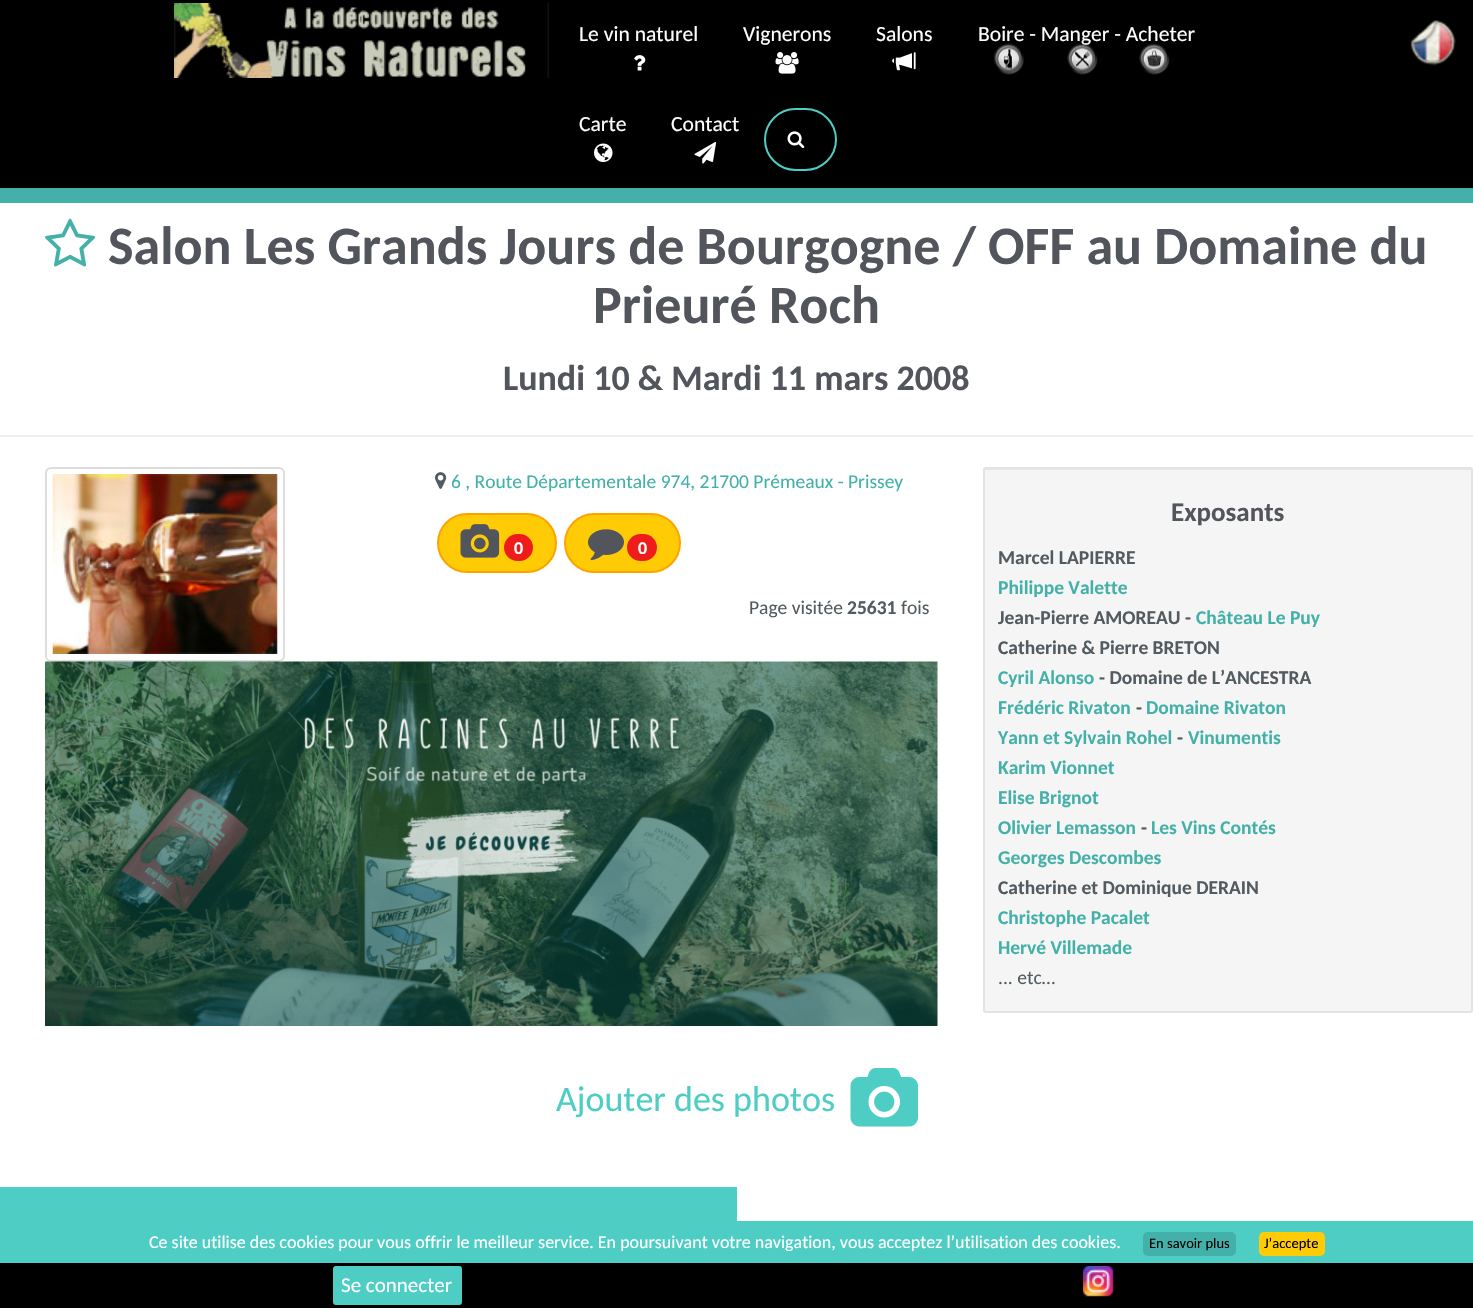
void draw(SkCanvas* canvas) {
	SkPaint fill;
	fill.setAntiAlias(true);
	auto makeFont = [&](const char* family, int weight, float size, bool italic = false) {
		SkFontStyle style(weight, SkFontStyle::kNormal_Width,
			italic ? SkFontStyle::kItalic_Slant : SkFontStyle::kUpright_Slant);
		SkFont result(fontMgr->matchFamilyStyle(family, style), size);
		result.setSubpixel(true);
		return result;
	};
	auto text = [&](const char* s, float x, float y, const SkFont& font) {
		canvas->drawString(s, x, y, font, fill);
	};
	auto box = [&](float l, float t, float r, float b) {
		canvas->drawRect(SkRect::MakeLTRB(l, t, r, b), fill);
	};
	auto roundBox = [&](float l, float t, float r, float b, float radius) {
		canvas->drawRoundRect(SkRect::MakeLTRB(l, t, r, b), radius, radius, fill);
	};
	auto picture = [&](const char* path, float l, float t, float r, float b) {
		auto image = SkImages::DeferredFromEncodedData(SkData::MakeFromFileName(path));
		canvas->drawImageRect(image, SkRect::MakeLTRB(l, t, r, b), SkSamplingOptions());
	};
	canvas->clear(0xFFFFFFFF);
	fill.setColor(0xFF000000);
	box(0, 0, 1473, 188);
	picture("image0.png", 174, 3, 549, 78);
	picture("image1.png", 634, 55, 646, 71);
	picture("image2.png", 775, 52, 799, 74);
	picture("image3.png", 892, 52, 916, 71);
	picture("image7.png", 594, 143, 613, 162);
	picture("image8.png", 694, 142, 717, 164);
	fill.setStyle(SkPaint::kStroke_Style);
	fill.setStrokeWidth(2);
	fill.setColor(0xFF4ECDC4);
	canvas->drawRoundRect(SkRect::MakeLTRB(765, 109, 836, 170), 30.5f, 30.5f, fill);
	picture("image9.png", 787, 131, 805, 148);
	picture("image10.png", 1410, 20, 1456, 66);
	fill.setStyle(SkPaint::kFill_Style);
	fill.setColor(0xFF43B1A9);
	box(0, 188, 1473, 203);
	picture("image11.png", 45, 218, 96, 267);
	fill.setColor(0xFFEEEEEE);
	box(0, 435, 1473, 437);
	fill.setStyle(SkPaint::kStroke_Style);
	fill.setColor(0xFFDDDDDD);
	canvas->drawRoundRect(SkRect::MakeLTRB(46, 468, 284, 661), 5, 5, fill);
	picture("image12.png", 52, 474, 278, 654);
	picture("image13.png", 435, 472, 447, 489);
	fill.setStyle(SkPaint::kFill_Style);
	fill.setColor(0xFFFFCB05);
	canvas->drawRoundRect(SkRect::MakeLTRB(438, 514, 556, 572), 29, 29, fill);
	fill.setStyle(SkPaint::kStroke_Style);
	fill.setColor(0xFFFFA200);
	canvas->drawRoundRect(SkRect::MakeLTRB(438, 514, 556, 572), 29, 29, fill);
	picture("image14.png", 460, 524, 500, 558);
	fill.setStyle(SkPaint::kFill_Style);
	fill.setColor(0xFFEF1C1C);
	roundBox(504, 534, 533, 561, 13.5f);
	fill.setColor(0xFFFFCB05);
	canvas->drawRoundRect(SkRect::MakeLTRB(565, 514, 680, 572), 29, 29, fill);
	fill.setStyle(SkPaint::kStroke_Style);
	fill.setColor(0xFFFFA200);
	canvas->drawRoundRect(SkRect::MakeLTRB(565, 514, 680, 572), 29, 29, fill);
	picture("image15.png", 588, 529, 624, 561);
	fill.setStyle(SkPaint::kFill_Style);
	fill.setColor(0xFFEF1C1C);
	roundBox(627, 534, 657, 561, 13.5f);
	picture("image16.png", 45, 661, 938, 1026);
	fill.setColor(0xFFF5F5F5);
	roundBox(983, 467, 1473, 1013, 3);
	fill.setColor(0xFFE9E9E9);
	canvas->drawPath(SkPathBuilder().moveTo(986, 470).lineTo(1470, 470).cubicTo(1471, 470, 1472, 470, 1472, 471).cubicTo(1472, 470, 1472, 468, 1470, 468).lineTo(986, 468).lineTo(984, 469).lineTo(984, 471).cubicTo(984, 470, 985, 470, 986, 470).close().detach(), fill);
	fill.setStyle(SkPaint::kStroke_Style);
	fill.setColor(0xFFE3E3E3);
	canvas->drawRoundRect(SkRect::MakeLTRB(984, 468, 1472, 1012), 2, 2, fill);
	picture("image17.png", 850, 1068, 918, 1127);
	fill.setStyle(SkPaint::kFill_Style);
	fill.setColor(0xFF4ECDC4);
	box(0, 1187, 737, 1221);
	fill.setColor(0xFF000000);
	box(0, 1263, 1473, 1308);
	fill.setColor(0xFF4ECDC4);
	canvas->drawRoundRect(SkRect::MakeLTRB(334, 1267, 461, 1304), 2, 2, fill);
	fill.setStyle(SkPaint::kStroke_Style);
	canvas->drawRoundRect(SkRect::MakeLTRB(334, 1267, 461, 1304), 2, 2, fill);
	picture("image18.png", 1083, 1266, 1114, 1297);
	fill.setStyle(SkPaint::kFill_Style);
	box(0, 1221, 1473, 1263);
	fill.setColor(0xFF43B1A9);
	roundBox(1143, 1232, 1236, 1256, 5);
	fill.setColor(0xFFFFCB05);
	roundBox(1259, 1232, 1325, 1256, 5);
	auto font1 = makeFont("Carlito", 400, 21.6f);
	fill.setColor(0xFFFFFFFF);
	text("Le vin naturel", 579, 41, font1);
	text("Vignerons", 743, 41, font1);
	text("Salons", 876, 41, font1);
	text("Boire - Manger - Acheter", 978, 41, font1);
	picture("image4.png", 993, 43, 1024, 75);
	picture("image5.png", 1067, 43, 1098, 75);
	picture("image6.png", 1139, 43, 1170, 75);
	text("Carte", 579, 131, font1);
	text("Contact", 671, 131, font1);
	auto font2 = makeFont("Carlito", 700, 54);
	fill.setColor(0xFF53555C);
	text("Salon Les Grands Jours de Bourgogne / OFF au Domaine du", 108, 264, font2);
	text("Prieuré Roch", 593, 323, font2);
	auto font3 = makeFont("Carlito", 700, 36);
	text("Lundi 10 & Mardi 11 mars 2008", 503, 390, font3);
	auto font4 = makeFont("Carlito", 400, 19.5f);
	fill.setColor(0xFF43B1A9);
	text("6 , Route Départementale 974, 21700 Prémeaux - Prissey", 451, 488, font4);
	auto font5 = makeFont("Carlito", 700, 18);
	fill.setColor(0xFFFFFFFF);
	text("0", 514, 554, font5);
	text("0", 638, 554, font5);
	fill.setColor(0xFF535B60);
	text("Page visitée", 749, 614, font4);
	auto font6 = makeFont("Carlito", 700, 19.5f);
	text("25631", 847, 614, font6);
	text("fois", 901, 614, font4);
	auto font7 = makeFont("Carlito", 700, 27);
	fill.setColor(0xFF53555C);
	text("Exposants", 1171, 521, font7);
	fill.setColor(0xFF535B60);
	text("Marcel LAPIERRE", 998, 564, font6);
	fill.setColor(0xFF43B1A9);
	text("Philippe Valette", 998, 594, font6);
	fill.setColor(0xFF535B60);
	text("Jean-Pierre AMOREAU -", 998, 624, font6);
	fill.setColor(0xFF43B1A9);
	text("Château Le Puy", 1196, 624, font6);
	fill.setColor(0xFF535B60);
	text("Catherine & Pierre BRETON", 998, 654, font6);
	fill.setColor(0xFF43B1A9);
	text("Cyril Alonso", 998, 684, font6);
	fill.setColor(0xFF535B60);
	text("- Domaine de L’ANCESTRA", 1099, 684, font6);
	fill.setColor(0xFF43B1A9);
	text("Frédéric Rivaton", 998, 714, font6);
	fill.setColor(0xFF535B60);
	text("-", 1136, 714, font6);
	fill.setColor(0xFF43B1A9);
	text("Domaine Rivaton", 1146, 714, font6);
	text("Yann et Sylvain Rohel", 998, 744, font6);
	fill.setColor(0xFF535B60);
	text("-", 1177, 744, font6);
	fill.setColor(0xFF43B1A9);
	text("Vinumentis", 1188, 744, font6);
	text("Karim Vionnet", 998, 774, font6);
	text("Elise Brignot", 998, 804, font6);
	text("Olivier Lemasson", 998, 834, font6);
	fill.setColor(0xFF535B60);
	text("-", 1141, 834, font6);
	fill.setColor(0xFF43B1A9);
	text("Les Vins Contés", 1151, 834, font6);
	text("Georges Descombes", 998, 864, font6);
	fill.setColor(0xFF535B60);
	text("Catherine et Dominique DERAIN", 998, 894, font6);
	fill.setColor(0xFF43B1A9);
	text("Christophe Pacalet", 998, 924, font6);
	text("Hervé Villemade", 998, 954, font6);
	fill.setColor(0xFF535B60);
	text("... etc…", 998, 984, font4);
	auto font8 = makeFont("Carlito", 400, 36);
	fill.setColor(0xFF4ECDC4);
	text("Ajouter des photos", 556, 1111, font8);
	auto font9 = makeFont("Carlito", 400, 21);
	fill.setColor(0xFFFFFFFF);
	text("Se connecter", 341, 1292, font9);
	auto font10 = makeFont("Carlito", 400, 18);
	text("Ce site utilise des cookies pour vous offrir le meilleur service. En poursuivant votre navigation, vous acceptez l’utilisation des cookies.", 149, 1248, font10);
	auto font11 = makeFont("Carlito", 400, 14.5f);
	fill.setColor(0xFF000000);
	text("En savoir plus", 1149, 1248, font11);
	text("J’accepte", 1264, 1248, font11);
}
